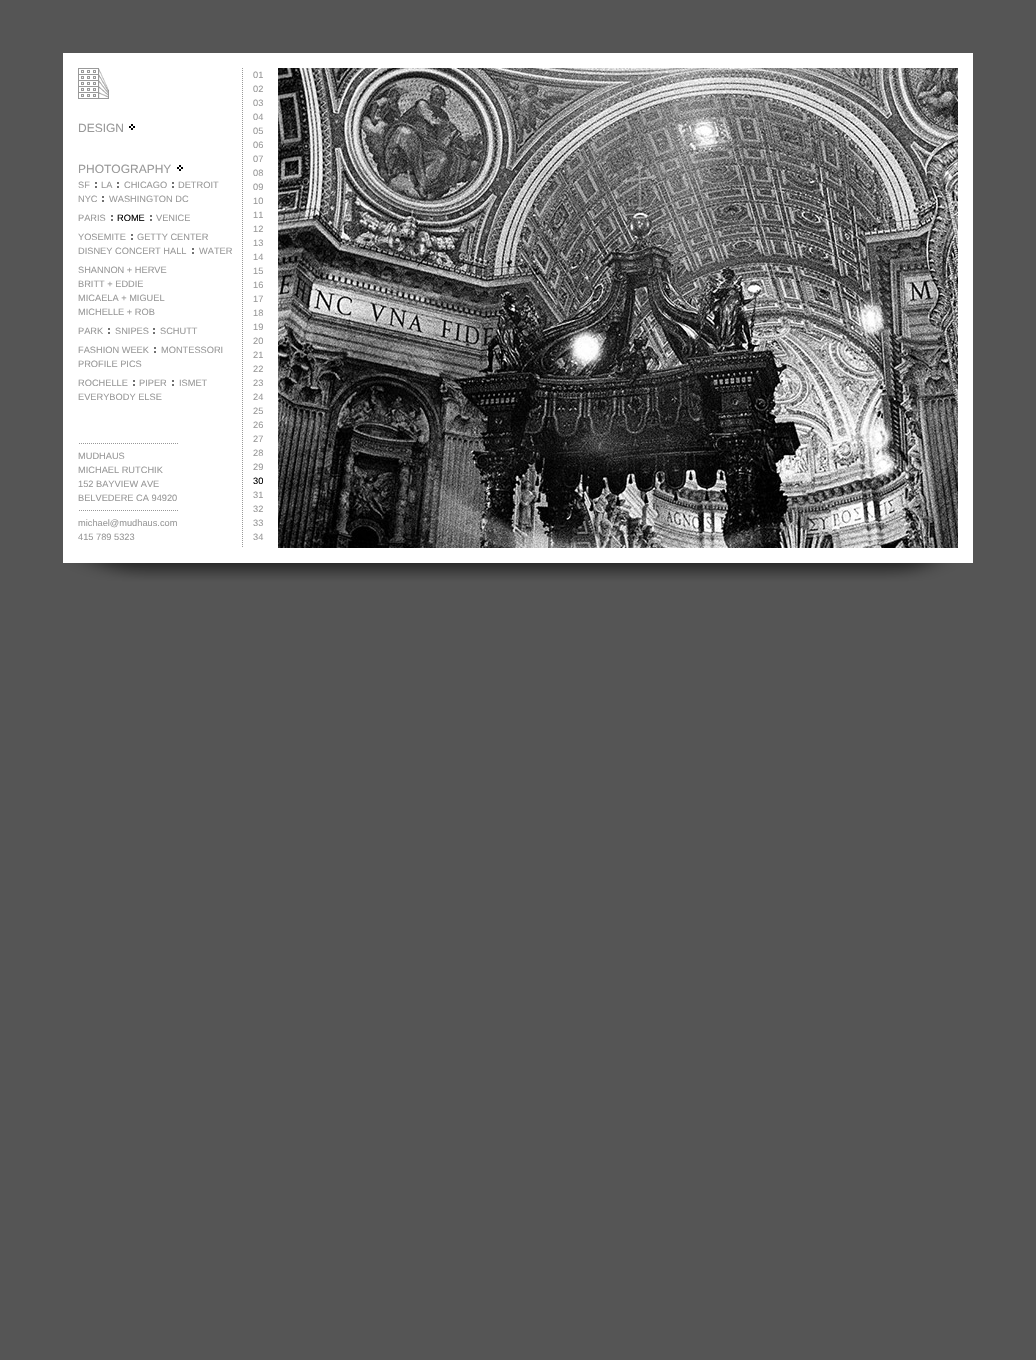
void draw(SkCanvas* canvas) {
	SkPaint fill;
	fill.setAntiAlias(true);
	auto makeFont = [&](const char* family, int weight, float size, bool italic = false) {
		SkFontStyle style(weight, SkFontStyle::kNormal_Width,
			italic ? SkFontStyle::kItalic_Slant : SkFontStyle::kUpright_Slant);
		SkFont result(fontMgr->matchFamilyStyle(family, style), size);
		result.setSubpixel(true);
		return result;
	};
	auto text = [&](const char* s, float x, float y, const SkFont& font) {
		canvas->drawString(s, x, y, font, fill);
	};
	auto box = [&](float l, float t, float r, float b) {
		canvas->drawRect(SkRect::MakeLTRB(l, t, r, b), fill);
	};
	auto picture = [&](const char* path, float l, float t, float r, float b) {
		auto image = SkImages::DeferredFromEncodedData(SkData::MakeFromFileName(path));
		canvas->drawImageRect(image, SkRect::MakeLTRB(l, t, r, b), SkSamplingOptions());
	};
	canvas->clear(0xFF555555);
	fill.setColor(0xFFFFFFFF);
	box(63, 53, 973, 563);
	picture("image0.png", 78, 68, 109, 99);
	picture("image1.png", 129, 124, 135, 130);
	picture("image1.png", 177, 165, 183, 171);
	picture("image2.png", 95, 182, 97, 188);
	picture("image2.png", 117, 182, 119, 188);
	picture("image2.png", 172, 182, 174, 188);
	picture("image2.png", 102, 196, 104, 202);
	picture("image2.png", 111, 215, 113, 221);
	picture("image2.png", 150, 215, 152, 221);
	picture("image2.png", 131, 234, 133, 240);
	picture("image2.png", 192, 248, 194, 254);
	picture("image2.png", 108, 328, 110, 334);
	picture("image2.png", 153, 328, 155, 334);
	picture("image2.png", 154, 347, 156, 353);
	picture("image2.png", 133, 380, 135, 386);
	picture("image2.png", 172, 380, 174, 386);
	picture("image3.png", 79, 443, 178, 444);
	picture("image3.png", 79, 510, 178, 511);
	picture("image4.png", 242, 68, 243, 547);
	picture("image5.png", 278, 68, 958, 548);
	picture("image6.png", 63, 563, 973, 593);
	auto font1 = makeFont("Liberation Sans", 400, 12);
	fill.setColor(0xFF999999);
	text("DESIGN", 78, 132, font1);
	text("PHOTOGRAPHY", 78, 173, font1);
	auto font2 = makeFont("Liberation Sans", 400, 9.25f);
	text("SF", 78, 188, font2);
	text("LA", 101, 188, font2);
	text("CHICAGO", 124, 188, font2);
	text("DETROIT", 178, 188, font2);
	text("NYC", 78, 202, font2);
	text("WASHINGTON DC", 109, 202, font2);
	text("PARIS", 78, 221, font2);
	fill.setColor(0xFF000000);
	text("ROME", 117, 221, font2);
	fill.setColor(0xFF999999);
	text("VENICE", 156, 221, font2);
	text("YOSEMITE", 78, 240, font2);
	text("GETTY CENTER", 137, 240, font2);
	text("DISNEY CONCERT HALL", 78, 254, font2);
	text("WATER", 199, 254, font2);
	text("SHANNON + HERVE", 78, 273, font2);
	text("BRITT + EDDIE", 78, 287, font2);
	text("MICAELA + MIGUEL", 78, 301, font2);
	text("MICHELLE + ROB", 78, 315, font2);
	text("PARK", 78, 334, font2);
	text("SNIPES", 115, 334, font2);
	text("SCHUTT", 160, 334, font2);
	text("FASHION WEEK", 78, 353, font2);
	text("MONTESSORI", 161, 353, font2);
	text("PROFILE PICS", 78, 367, font2);
	text("ROCHELLE", 78, 386, font2);
	text("PIPER", 139, 386, font2);
	text("ISMET", 179, 386, font2);
	text("EVERYBODY ELSE", 78, 400, font2);
	text("MUDHAUS", 78, 459, font2);
	text("MICHAEL RUTCHIK", 78, 473, font2);
	text("152 BAYVIEW AVE", 78, 487, font2);
	text("BELVEDERE CA 94920", 78, 501, font2);
	text("michael@mudhaus.com", 78, 526, font2);
	text("415 789 5323", 78, 540, font2);
	text("01", 253, 78, font2);
	text("02", 253, 92, font2);
	text("03", 253, 106, font2);
	text("04", 253, 120, font2);
	text("05", 253, 134, font2);
	text("06", 253, 148, font2);
	text("07", 253, 162, font2);
	text("08", 253, 176, font2);
	text("09", 253, 190, font2);
	text("10", 253, 204, font2);
	text("11", 253, 218, font2);
	text("12", 253, 232, font2);
	text("13", 253, 246, font2);
	text("14", 253, 260, font2);
	text("15", 253, 274, font2);
	text("16", 253, 288, font2);
	text("17", 253, 302, font2);
	text("18", 253, 316, font2);
	text("19", 253, 330, font2);
	text("20", 253, 344, font2);
	text("21", 253, 358, font2);
	text("22", 253, 372, font2);
	text("23", 253, 386, font2);
	text("24", 253, 400, font2);
	text("25", 253, 414, font2);
	text("26", 253, 428, font2);
	text("27", 253, 442, font2);
	text("28", 253, 456, font2);
	text("29", 253, 470, font2);
	fill.setColor(0xFF000000);
	text("30", 253, 484, font2);
	fill.setColor(0xFF999999);
	text("31", 253, 498, font2);
	text("32", 253, 512, font2);
	text("33", 253, 526, font2);
	text("34", 253, 540, font2);
}
